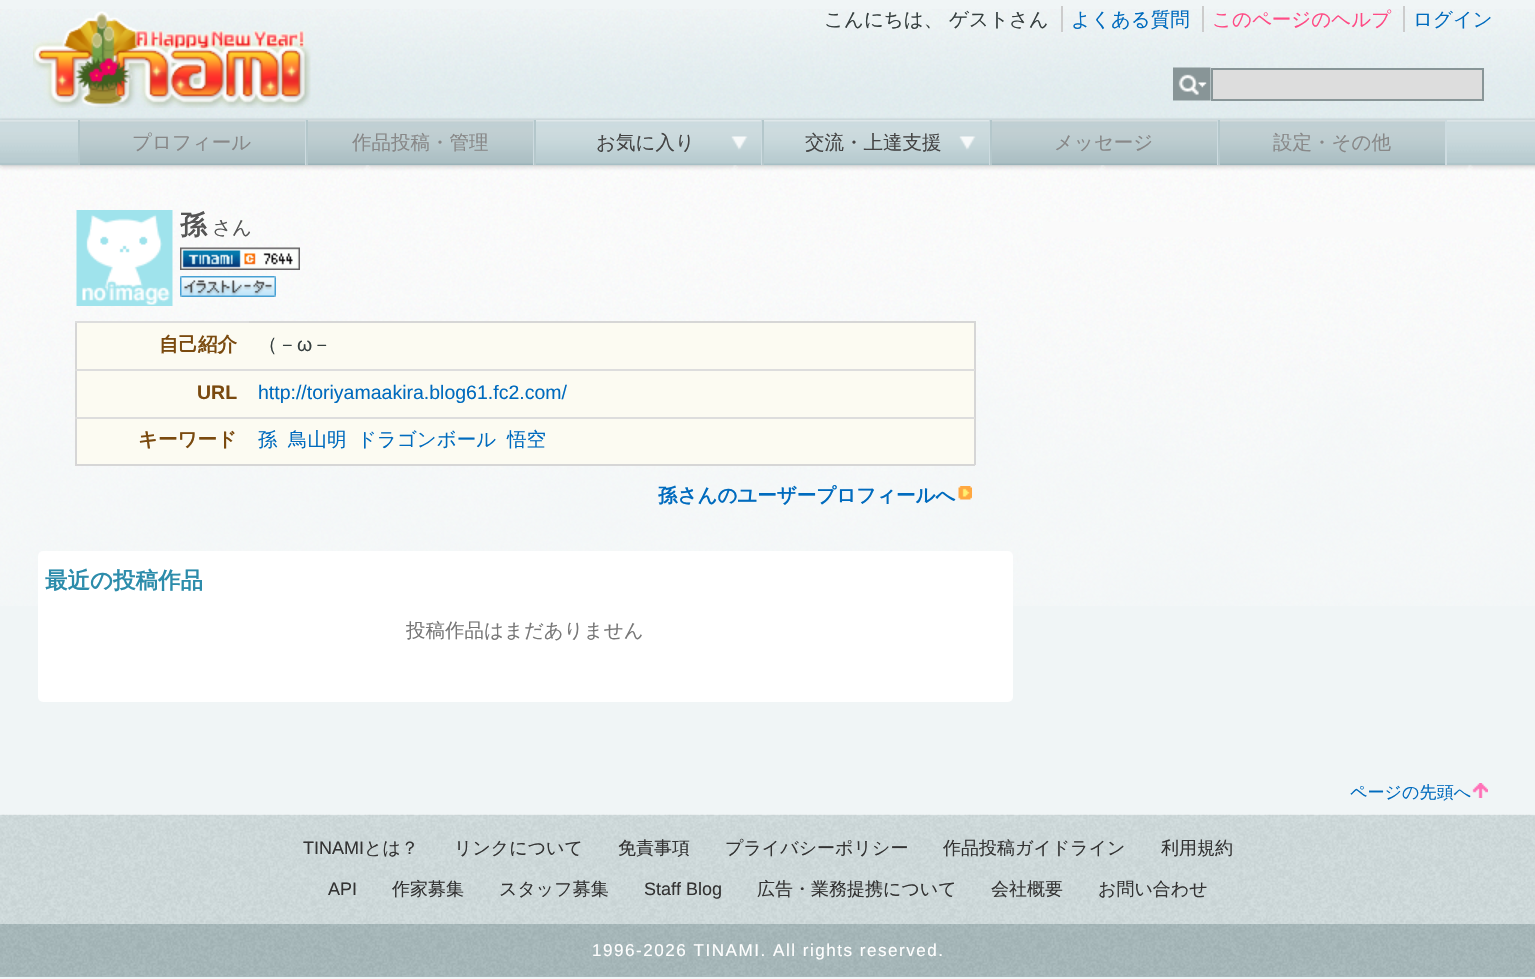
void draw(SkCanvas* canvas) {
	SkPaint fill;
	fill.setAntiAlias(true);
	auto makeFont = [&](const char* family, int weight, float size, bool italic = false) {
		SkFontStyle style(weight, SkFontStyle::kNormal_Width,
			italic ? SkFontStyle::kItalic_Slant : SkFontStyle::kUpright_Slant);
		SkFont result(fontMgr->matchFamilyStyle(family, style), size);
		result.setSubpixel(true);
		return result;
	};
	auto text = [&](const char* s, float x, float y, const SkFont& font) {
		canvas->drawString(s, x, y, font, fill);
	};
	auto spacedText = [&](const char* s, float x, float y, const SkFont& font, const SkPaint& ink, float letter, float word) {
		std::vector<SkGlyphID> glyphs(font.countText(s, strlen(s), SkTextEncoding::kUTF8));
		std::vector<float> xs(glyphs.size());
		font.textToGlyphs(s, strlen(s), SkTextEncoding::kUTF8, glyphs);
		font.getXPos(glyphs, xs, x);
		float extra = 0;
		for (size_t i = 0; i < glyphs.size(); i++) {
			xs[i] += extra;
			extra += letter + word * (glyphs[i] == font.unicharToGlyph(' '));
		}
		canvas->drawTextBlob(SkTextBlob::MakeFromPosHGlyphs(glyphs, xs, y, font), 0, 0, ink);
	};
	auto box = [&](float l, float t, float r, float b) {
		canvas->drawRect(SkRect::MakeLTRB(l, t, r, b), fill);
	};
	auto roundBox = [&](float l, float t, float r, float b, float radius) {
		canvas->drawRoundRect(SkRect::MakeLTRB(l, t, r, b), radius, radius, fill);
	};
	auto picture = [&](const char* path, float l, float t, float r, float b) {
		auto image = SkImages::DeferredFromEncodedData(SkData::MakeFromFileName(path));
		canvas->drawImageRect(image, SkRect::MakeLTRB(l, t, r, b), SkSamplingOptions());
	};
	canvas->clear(0xFFF0F5F6);
	picture("image0.png", 0, 9, 1535, 606);
	picture("image1.png", 33, 11, 311, 108);
	fill.setColor(0xFFCCCCCC);
	box(1061, 6, 1063, 32);
	box(1202, 6, 1204, 32);
	box(1403, 6, 1405, 32);
	picture("image2.png", 1173, 67, 1211, 101);
	fill.setColor(0xFFDDDDDD);
	canvas->drawRect(SkRect::MakeLTRB(1212, 69, 1483, 100), fill);
	fill.setStyle(SkPaint::kStroke_Style);
	fill.setStrokeWidth(2);
	fill.setColor(0xFF889597);
	canvas->drawRect(SkRect::MakeLTRB(1212, 69, 1483, 100), fill);
	picture("image3.png", 80, 120, 305, 165);
	fill.setStyle(SkPaint::kFill_Style);
	fill.setColor(0xFFCDDBE0);
	box(305, 120, 306, 165);
	fill.setColor(0xFFB4C7CB);
	box(78, 120, 80, 165);
	picture("image4.png", 308, 120, 533, 165);
	fill.setColor(0xFFCDDBE0);
	box(533, 120, 534, 165);
	fill.setColor(0xFFB4C7CB);
	box(306, 120, 308, 165);
	picture("image5.png", 536, 120, 761, 165);
	fill.setColor(0xFFCDDBE0);
	box(761, 120, 762, 165);
	fill.setColor(0xFFB4C7CB);
	box(534, 120, 536, 165);
	picture("image6.png", 764, 120, 989, 165);
	fill.setColor(0xFFCDDBE0);
	box(989, 120, 990, 165);
	fill.setColor(0xFFB4C7CB);
	box(762, 120, 764, 165);
	picture("image7.png", 992, 120, 1217, 165);
	fill.setColor(0xFFCDDBE0);
	box(1217, 120, 1218, 165);
	fill.setColor(0xFFB4C7CB);
	box(990, 120, 992, 165);
	picture("image8.png", 1220, 120, 1445, 165);
	fill.setColor(0xFFCDDBE0);
	box(1445, 120, 1447, 165);
	fill.setColor(0xFFB4C7CB);
	box(1218, 120, 1220, 165);
	picture("image9.png", 76, 210, 173, 306);
	picture("image10.png", 180, 247, 300, 270);
	picture("image11.png", 180, 276, 276, 297);
	fill.setColor(0xFFFCFBF2);
	box(77, 323, 974, 464);
	fill.setColor(0xFFD6D6D6);
	box(249, 321, 975, 323);
	box(974, 321, 976, 465);
	box(75, 464, 975, 466);
	box(75, 321, 77, 465);
	fill.setColor(0xFFDDDDDD);
	box(75, 321, 249, 323);
	box(75, 369, 975, 371);
	box(75, 417, 975, 419);
	picture("image12.png", 958, 486, 972, 500);
	fill.setColor(0xFFFFFFFF);
	roundBox(38, 551, 1013, 702, 5);
	fill.setColor(0xFFFAFAFA);
	box(1043, 222, 1492, 237);
	picture("image13.png", 1472, 783, 1488, 798);
	fill.setColor(0xFFD6E2E3);
	box(0, 815, 1535, 924);
	picture("image14.png", 0, 814, 1535, 924);
	fill.setColor(0xFFA9BCBF);
	box(0, 924, 1535, 977);
	picture("image15.png", 0, 924, 1535, 977);
	auto font1 = makeFont("WenQuanYi Zen Hei", 500, 19.5f);
	fill.setColor(0xFF363F3F);
	text("こんにちは、", 824, 26, font1);
	text("ゲストさん", 949, 26, font1);
	fill.setColor(0xFF006BBE);
	text("よくある質問", 1071, 26, font1);
	fill.setColor(0xFFFF4B85);
	text("このページのヘルプ", 1212, 26, font1);
	fill.setColor(0xFF006BBE);
	text("ログイン", 1413, 26, font1);
	fill.setColor(0xFF888888);
	text("プロフィール", 132, 149, font1);
	text("作品投稿・管理", 352, 149, font1);
	fill.setColor(0xFF444444);
	text("お気に入り", 596, 149, font1);
	text("交流・上達支援", 805, 149, font1);
	fill.setColor(0xFF888888);
	text("メッセージ", 1054, 149, font1);
	text("設定・その他", 1273, 149, font1);
	auto font2 = makeFont("WenQuanYi Zen Hei", 700, 27);
	fill.setColor(0xFF555555);
	text("孫", 180, 234, font2);
	text("さん", 212, 234, font1);
	auto font3 = makeFont("WenQuanYi Zen Hei", 700, 19.5f);
	fill.setColor(0xFF7A4A0F);
	text("自己紹介", 159, 351, font3);
	fill.setColor(0xFF363F3F);
	text("（－", 258, 351, font1);
	auto font4 = makeFont("Liberation Sans", 400, 19.5f);
	text("ω", 297, 351, font4);
	text("－", 312, 351, font1);
	auto font5 = makeFont("Liberation Sans", 700, 19.5f);
	fill.setColor(0xFF7A4A0F);
	text("URL", 197, 399, font5);
	fill.setColor(0xFF006BBE);
	text("http://toriyamaakira.blog61.fc2.com/", 258, 399, font4);
	fill.setColor(0xFF7A4A0F);
	text("キーワード", 138, 446, font3);
	fill.setColor(0xFF006BBE);
	text("孫", 258, 446, font1);
	text("鳥山明", 288, 446, font1);
	text("ドラゴンボール", 357, 446, font1);
	text("悟空", 507, 446, font1);
	text("孫さんのユーザープロフィールへ", 658, 502, font3);
	auto font6 = makeFont("WenQuanYi Zen Hei", 700, 22.5f);
	fill.setColor(0xFF2C8CAB);
	text("最近の投稿作品", 45, 588, font6);
	fill.setColor(0xFF777777);
	text("投稿作品はまだありません", 406, 637, font1);
	auto font7 = makeFont("WenQuanYi Zen Hei", 500, 17.1f);
	fill.setColor(0xFF006BBE);
	text("ページの先頭へ", 1350, 798, font7);
	auto font8 = makeFont("Liberation Sans", 400, 18);
	fill.setColor(0xFF333333);
	text("TINAMI", 303, 854, font8);
	auto font9 = makeFont("WenQuanYi Zen Hei", 500, 18);
	text("とは？", 364, 854, font9);
	text("リンクについて", 454, 854, font9);
	text("免責事項", 618, 854, font9);
	text("プライバシーポリシー", 725, 854, font9);
	text("作品投稿ガイドライン", 943, 854, font9);
	text("利用規約", 1161, 854, font9);
	text("API", 328, 895, font8);
	text("作家募集", 392, 895, font9);
	text("スタッフ募集", 499, 895, font9);
	text("Staff Blog", 644, 895, font8);
	text("広告・業務提携について", 757, 895, font9);
	text("会社概要", 991, 895, font9);
	text("お問い合わせ", 1098, 895, font9);
	auto font10 = makeFont("Liberation Sans", 400, 17.1f);
	fill.setColor(0xFFFFFFFF);
	spacedText("1996-2026 TINAMI. All rights reserved.", 592, 956, font10, fill, 1.5f, 0);
}
